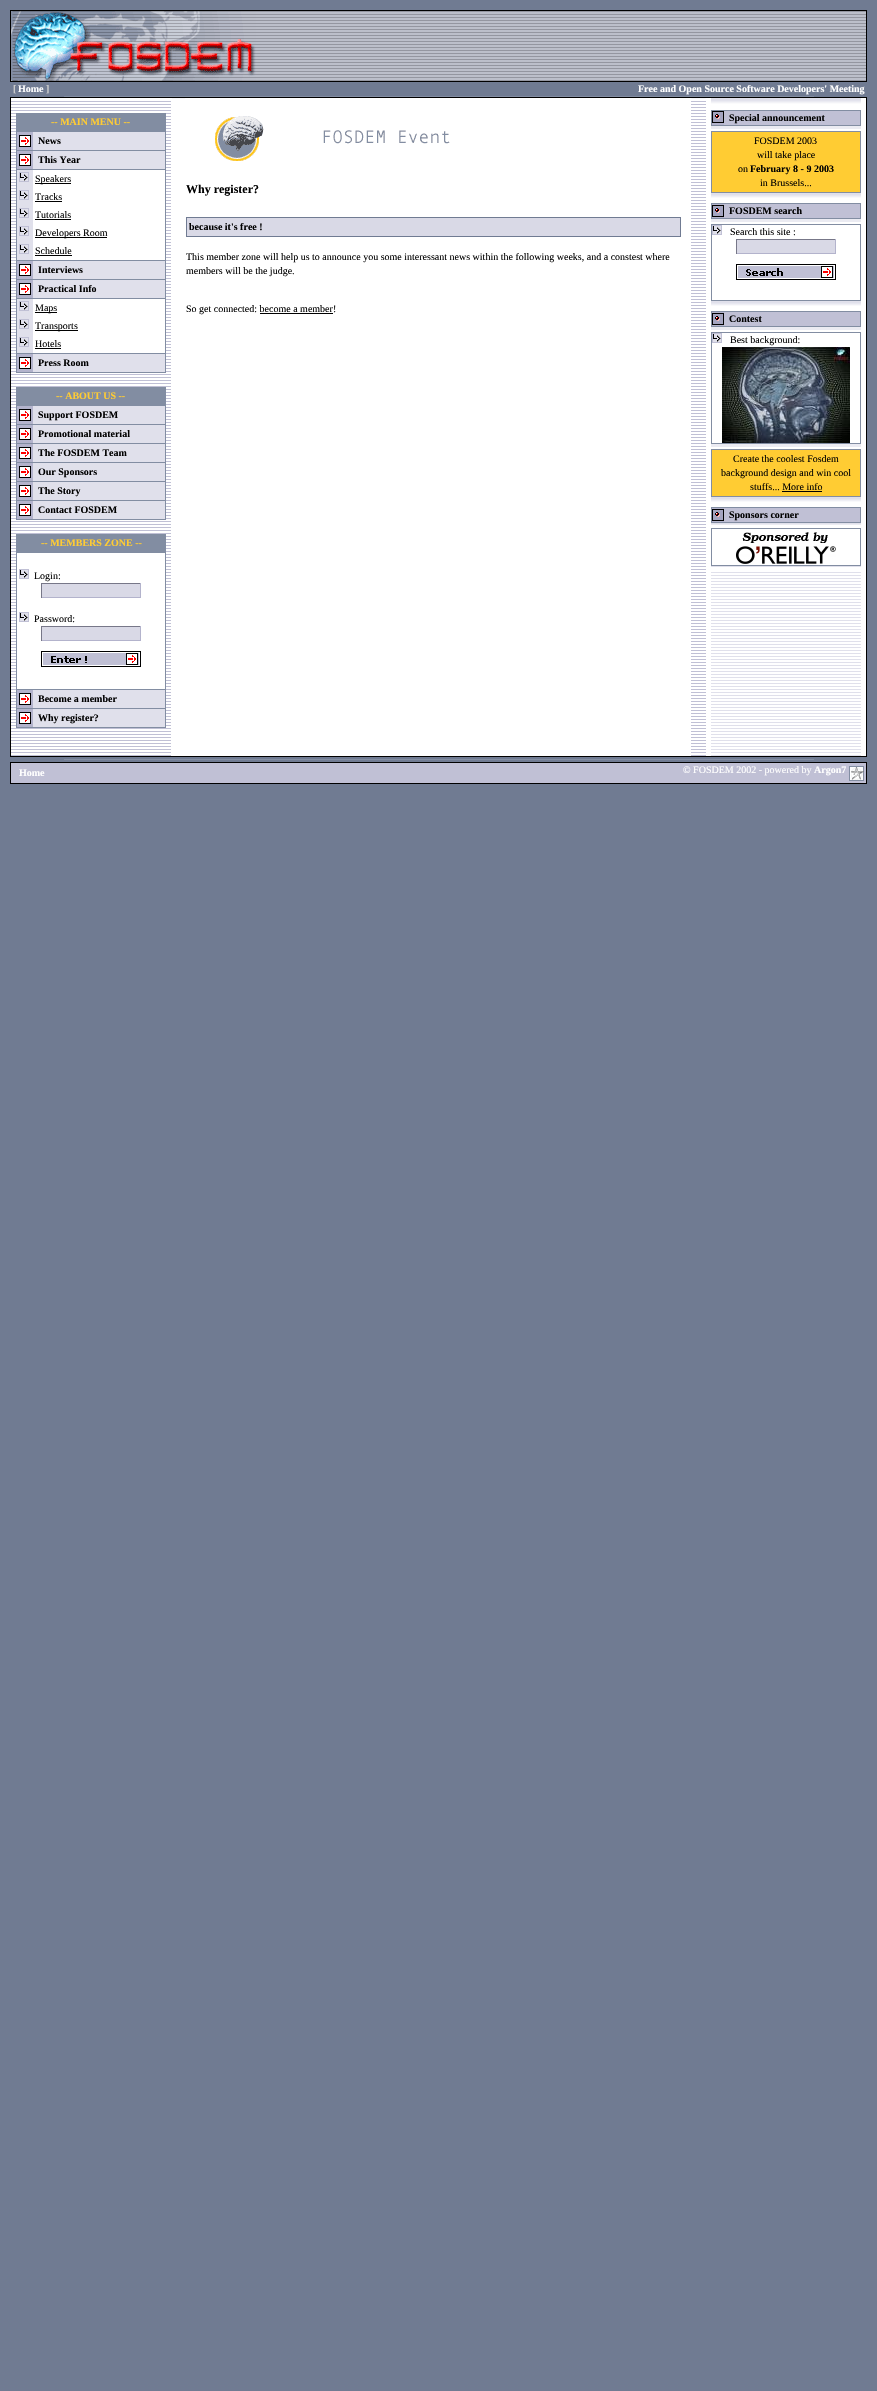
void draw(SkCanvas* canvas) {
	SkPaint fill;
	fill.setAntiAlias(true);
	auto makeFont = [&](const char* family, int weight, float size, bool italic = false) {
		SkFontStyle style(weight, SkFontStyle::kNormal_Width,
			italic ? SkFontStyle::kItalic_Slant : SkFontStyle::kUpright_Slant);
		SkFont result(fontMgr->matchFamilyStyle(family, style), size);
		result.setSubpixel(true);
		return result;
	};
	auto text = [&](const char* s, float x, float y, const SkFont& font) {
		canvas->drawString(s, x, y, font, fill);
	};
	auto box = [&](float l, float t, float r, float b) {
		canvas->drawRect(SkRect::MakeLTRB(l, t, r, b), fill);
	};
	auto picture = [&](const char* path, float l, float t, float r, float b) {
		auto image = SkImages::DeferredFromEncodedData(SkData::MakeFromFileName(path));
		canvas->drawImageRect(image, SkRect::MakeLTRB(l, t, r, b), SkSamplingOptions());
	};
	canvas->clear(0xFF707B92);
	fill.setColor(0xFF000000);
	box(10, 10, 867, 82);
	picture("image0.png", 256, 11, 261, 81);
	picture("image1.png", 11, 11, 256, 81);
	picture("image2.png", 261, 11, 866, 81);
	fill.setColor(0xFF828DA2);
	box(64, 96, 814, 97);
	fill.setColor(0xFF000000);
	box(10, 97, 867, 757);
	picture("image3.png", 11, 99, 171, 756);
	fill.setColor(0xFFFFFFFF);
	box(11, 98, 171, 99);
	fill.setColor(0xFF828DA2);
	box(16, 113, 166, 373);
	fill.setColor(0xFFB3B3CC);
	box(17, 132, 33, 150);
	picture("image4.png", 19, 135, 31, 147);
	fill.setColor(0xFFE0E0EB);
	box(33, 132, 165, 150);
	fill.setColor(0xFFB3B3CC);
	box(17, 151, 33, 169);
	picture("image4.png", 19, 154, 31, 166);
	fill.setColor(0xFFE0E0EB);
	box(33, 151, 165, 169);
	box(17, 170, 33, 260);
	picture("image5.png", 19, 172, 29, 182);
	fill.setColor(0xFFFFFFFF);
	box(33, 170, 165, 260);
	fill.setColor(0xFF000000);
	box(35, 183, 71, 184);
	picture("image5.png", 19, 190, 29, 200);
	box(35, 201, 62, 202);
	picture("image5.png", 19, 208, 29, 218);
	box(35, 219, 71, 220);
	picture("image5.png", 19, 226, 29, 236);
	box(35, 237, 107, 238);
	picture("image5.png", 19, 244, 29, 254);
	box(35, 255, 72, 256);
	fill.setColor(0xFFB3B3CC);
	box(17, 261, 33, 279);
	picture("image4.png", 19, 264, 31, 276);
	fill.setColor(0xFFE0E0EB);
	box(33, 261, 165, 279);
	fill.setColor(0xFFB3B3CC);
	box(17, 280, 33, 298);
	picture("image4.png", 19, 283, 31, 295);
	fill.setColor(0xFFE0E0EB);
	box(33, 280, 165, 298);
	box(17, 299, 33, 353);
	picture("image5.png", 19, 301, 29, 311);
	fill.setColor(0xFFFFFFFF);
	box(33, 299, 165, 353);
	fill.setColor(0xFF000000);
	box(35, 312, 57, 313);
	picture("image5.png", 19, 319, 29, 329);
	box(35, 330, 78, 331);
	picture("image5.png", 19, 337, 29, 347);
	box(35, 348, 61, 349);
	fill.setColor(0xFFB3B3CC);
	box(17, 354, 33, 372);
	picture("image4.png", 19, 357, 31, 369);
	fill.setColor(0xFFE0E0EB);
	box(33, 354, 165, 372);
	fill.setColor(0xFF828DA2);
	box(16, 387, 166, 520);
	fill.setColor(0xFFB3B3CC);
	box(17, 406, 33, 424);
	picture("image4.png", 19, 409, 31, 421);
	fill.setColor(0xFFE0E0EB);
	box(33, 406, 165, 424);
	fill.setColor(0xFFB3B3CC);
	box(17, 425, 33, 443);
	picture("image4.png", 19, 428, 31, 440);
	fill.setColor(0xFFE0E0EB);
	box(33, 425, 165, 443);
	fill.setColor(0xFFB3B3CC);
	box(17, 444, 33, 462);
	picture("image4.png", 19, 447, 31, 459);
	fill.setColor(0xFFE0E0EB);
	box(33, 444, 165, 462);
	fill.setColor(0xFFB3B3CC);
	box(17, 463, 33, 481);
	picture("image4.png", 19, 466, 31, 478);
	fill.setColor(0xFFE0E0EB);
	box(33, 463, 165, 481);
	fill.setColor(0xFFB3B3CC);
	box(17, 482, 33, 500);
	picture("image4.png", 19, 485, 31, 497);
	fill.setColor(0xFFE0E0EB);
	box(33, 482, 165, 500);
	fill.setColor(0xFFB3B3CC);
	box(17, 501, 33, 519);
	picture("image4.png", 19, 504, 31, 516);
	fill.setColor(0xFFE0E0EB);
	box(33, 501, 165, 519);
	fill.setColor(0xFF828DA2);
	box(16, 534, 166, 728);
	fill.setColor(0xFFFFFFFF);
	box(17, 553, 165, 689);
	picture("image5.png", 19, 569, 29, 579);
	fill.setColor(0xFFD9D9E6);
	box(42, 584, 140, 597);
	fill.setColor(0xFF777788);
	box(41, 583, 141, 584);
	fill.setColor(0xFFB3B3CC);
	box(140, 583, 141, 598);
	box(41, 597, 141, 598);
	fill.setColor(0xFF777788);
	box(41, 583, 42, 598);
	picture("image5.png", 19, 612, 29, 622);
	fill.setColor(0xFFD9D9E6);
	box(42, 627, 140, 640);
	fill.setColor(0xFF777788);
	box(41, 626, 141, 627);
	fill.setColor(0xFFB3B3CC);
	box(140, 626, 141, 641);
	box(41, 640, 141, 641);
	fill.setColor(0xFF777788);
	box(41, 626, 42, 641);
	picture("image6.png", 41, 651, 141, 667);
	fill.setColor(0xFFB3B3CC);
	box(17, 690, 33, 708);
	picture("image4.png", 19, 693, 31, 705);
	fill.setColor(0xFFE0E0EB);
	box(33, 690, 165, 708);
	fill.setColor(0xFFB3B3CC);
	box(17, 709, 33, 727);
	picture("image4.png", 19, 712, 31, 724);
	fill.setColor(0xFFE0E0EB);
	box(33, 709, 165, 727);
	fill.setColor(0xFFFFFFFF);
	box(171, 98, 691, 756);
	fill.setColor(0xFFF7F7FA);
	box(172, 98, 185, 99);
	picture("image7.png", 691, 99, 706, 756);
	picture("image8.png", 691, 98, 706, 99);
	fill.setColor(0xFFFFFFFF);
	box(706, 98, 866, 756);
	picture("image9.png", 711, 98, 861, 756);
	picture("image10.png", 711, 99, 861, 108);
	fill.setColor(0xFF828DA2);
	box(711, 110, 861, 126);
	fill.setColor(0xFFB3B3CC);
	box(712, 123, 724, 125);
	picture("image11.png", 712, 111, 724, 123);
	fill.setColor(0xFFC0C0D5);
	box(724, 111, 860, 125);
	fill.setColor(0xFFEBEBF2);
	box(711, 126, 861, 129);
	fill.setColor(0xFF828DA2);
	box(711, 131, 861, 193);
	fill.setColor(0xFFFFCC33);
	box(712, 132, 860, 192);
	picture("image12.png", 711, 193, 861, 201);
	fill.setColor(0xFF828DA2);
	box(711, 203, 861, 219);
	fill.setColor(0xFFB3B3CC);
	box(712, 204, 724, 218);
	picture("image11.png", 712, 205, 724, 217);
	fill.setColor(0xFFC0C0D5);
	box(724, 204, 860, 218);
	fill.setColor(0xFFEBEBF2);
	box(711, 219, 861, 222);
	fill.setColor(0xFF828DA2);
	box(711, 224, 861, 301);
	fill.setColor(0xFFFFFFFF);
	box(712, 225, 860, 300);
	picture("image5.png", 712, 225, 722, 235);
	fill.setColor(0xFFD9D9E6);
	box(737, 240, 835, 253);
	fill.setColor(0xFF777788);
	box(736, 239, 836, 240);
	fill.setColor(0xFFB3B3CC);
	box(835, 239, 836, 254);
	box(736, 253, 836, 254);
	fill.setColor(0xFF777788);
	box(736, 239, 737, 254);
	picture("image13.png", 736, 264, 836, 280);
	picture("image12.png", 711, 301, 861, 309);
	fill.setColor(0xFF828DA2);
	box(711, 311, 861, 327);
	fill.setColor(0xFFB3B3CC);
	box(712, 312, 724, 326);
	picture("image11.png", 712, 313, 724, 325);
	fill.setColor(0xFFC0C0D5);
	box(724, 312, 860, 326);
	fill.setColor(0xFFEBEBF2);
	box(711, 327, 861, 330);
	fill.setColor(0xFF828DA2);
	box(711, 332, 861, 444);
	fill.setColor(0xFFFFFFFF);
	box(712, 333, 860, 443);
	picture("image5.png", 712, 333, 722, 343);
	picture("image14.png", 722, 347, 850, 443);
	fill.setColor(0xFFEBEBF2);
	box(711, 444, 861, 447);
	fill.setColor(0xFF828DA2);
	box(711, 449, 861, 497);
	fill.setColor(0xFFFFCC33);
	box(712, 450, 860, 496);
	fill.setColor(0xFF000000);
	box(782, 491, 822, 492);
	picture("image15.png", 711, 498, 861, 507);
	fill.setColor(0xFF828DA2);
	box(711, 507, 861, 523);
	fill.setColor(0xFFB3B3CC);
	box(712, 508, 724, 522);
	picture("image11.png", 712, 509, 724, 521);
	fill.setColor(0xFFC0C0D5);
	box(724, 508, 860, 522);
	picture("image16.png", 711, 523, 861, 528);
	fill.setColor(0xFF828DA2);
	box(711, 528, 861, 566);
	fill.setColor(0xFFFFFFFF);
	box(712, 529, 860, 565);
	picture("image17.png", 736, 532, 836, 564);
	box(711, 569, 861, 570);
	picture("image18.png", 215, 116, 450, 161);
	fill.setColor(0xFFD9D9E6);
	canvas->drawRect(SkRect::MakeLTRB(186.5f, 217.5f, 680.5f, 236.5f), fill);
	fill.setStyle(SkPaint::kStroke_Style);
	fill.setStrokeWidth(1);
	fill.setColor(0xFF707B92);
	canvas->drawRect(SkRect::MakeLTRB(186.5f, 217.5f, 680.5f, 236.5f), fill);
	fill.setStyle(SkPaint::kFill_Style);
	fill.setColor(0xFF000000);
	box(260, 313, 333, 314);
	fill.setColor(0xFF828DA2);
	box(64, 759, 814, 760);
	fill.setColor(0xFF000000);
	box(10, 762, 867, 784);
	fill.setColor(0xFFC0C0D5);
	box(11, 763, 866, 783);
	picture("image19.png", 849, 766, 864, 781);
	auto font1 = makeFont("Liberation Serif", 700, 10);
	fill.setColor(0xFFCCCCCC);
	text("[", 13, 92, font1);
	fill.setColor(0xFFFFFFFF);
	text("Home", 18, 92, font1);
	fill.setColor(0xFFCCCCCC);
	text("]", 46, 92, font1);
	fill.setColor(0xFFFFFFFF);
	text("Free and Open Source Software Developers' Meeting", 638, 92, font1);
	fill.setColor(0xFFFFCC33);
	text("-- MAIN MENU --", 51, 125, font1);
	fill.setColor(0xFF000000);
	text("News", 38, 144, font1);
	text("This Year", 38, 163, font1);
	auto font2 = makeFont("Liberation Serif", 400, 10);
	text("Speakers", 35, 182, font2);
	text("Tracks", 35, 200, font2);
	text("Tutorials", 35, 218, font2);
	text("Developers Room", 35, 236, font2);
	text("Schedule", 35, 254, font2);
	text("Interviews", 38, 273, font1);
	text("Practical Info", 38, 292, font1);
	text("Maps", 35, 311, font2);
	text("Transports", 35, 329, font2);
	text("Hotels", 35, 347, font2);
	text("Press Room", 38, 366, font1);
	fill.setColor(0xFFFFCC33);
	text("-- ABOUT US --", 56, 399, font1);
	fill.setColor(0xFF000000);
	text("Support FOSDEM", 38, 418, font1);
	text("Promotional material", 38, 437, font1);
	text("The FOSDEM Team", 38, 456, font1);
	text("Our Sponsors", 38, 475, font1);
	text("The Story", 38, 494, font1);
	text("Contact FOSDEM", 38, 513, font1);
	fill.setColor(0xFFFFCC33);
	text("-- MEMBERS ZONE --", 41, 546, font1);
	fill.setColor(0xFF000000);
	text("Login:", 34, 579, font2);
	text("Password:", 34, 622, font2);
	text("Become a member", 38, 702, font1);
	text("Why register?", 38, 721, font1);
	text("Special announcement", 729, 121, font1);
	text("FOSDEM 2003", 754, 144, font2);
	text("will take place", 757, 158, font2);
	text("on", 738, 172, font2);
	text("February 8 - 9 2003", 750, 172, font1);
	text("in Brussels...", 760, 186, font2);
	text("FOSDEM search", 729, 214, font1);
	text("Search this site :", 730, 235, font2);
	text("Contest", 729, 322, font1);
	text("Best background:", 730, 343, font2);
	text("Create the coolest Fosdem", 733, 462, font2);
	text("background design and win cool", 721, 476, font2);
	text("stuffs... More info", 750, 490, font2);
	text("Sponsors corner", 729, 518, font1);
	auto font3 = makeFont("Liberation Serif", 700, 12);
	text("Why register?", 186, 193, font3);
	text("because it's free !", 189, 230, font1);
	text("This member zone will help us to announce you some interessant news within the following weeks, and a constest where", 186, 260, font2);
	text("members will be the judge.", 186, 274, font2);
	text("So get connected: become a member!", 186, 312, font2);
	fill.setColor(0xFFFFFFFF);
	text("Home", 19, 776, font1);
	text("© FOSDEM 2002 - powered by", 683, 773, font2);
	text("Argon7", 814, 773, font1);
}
